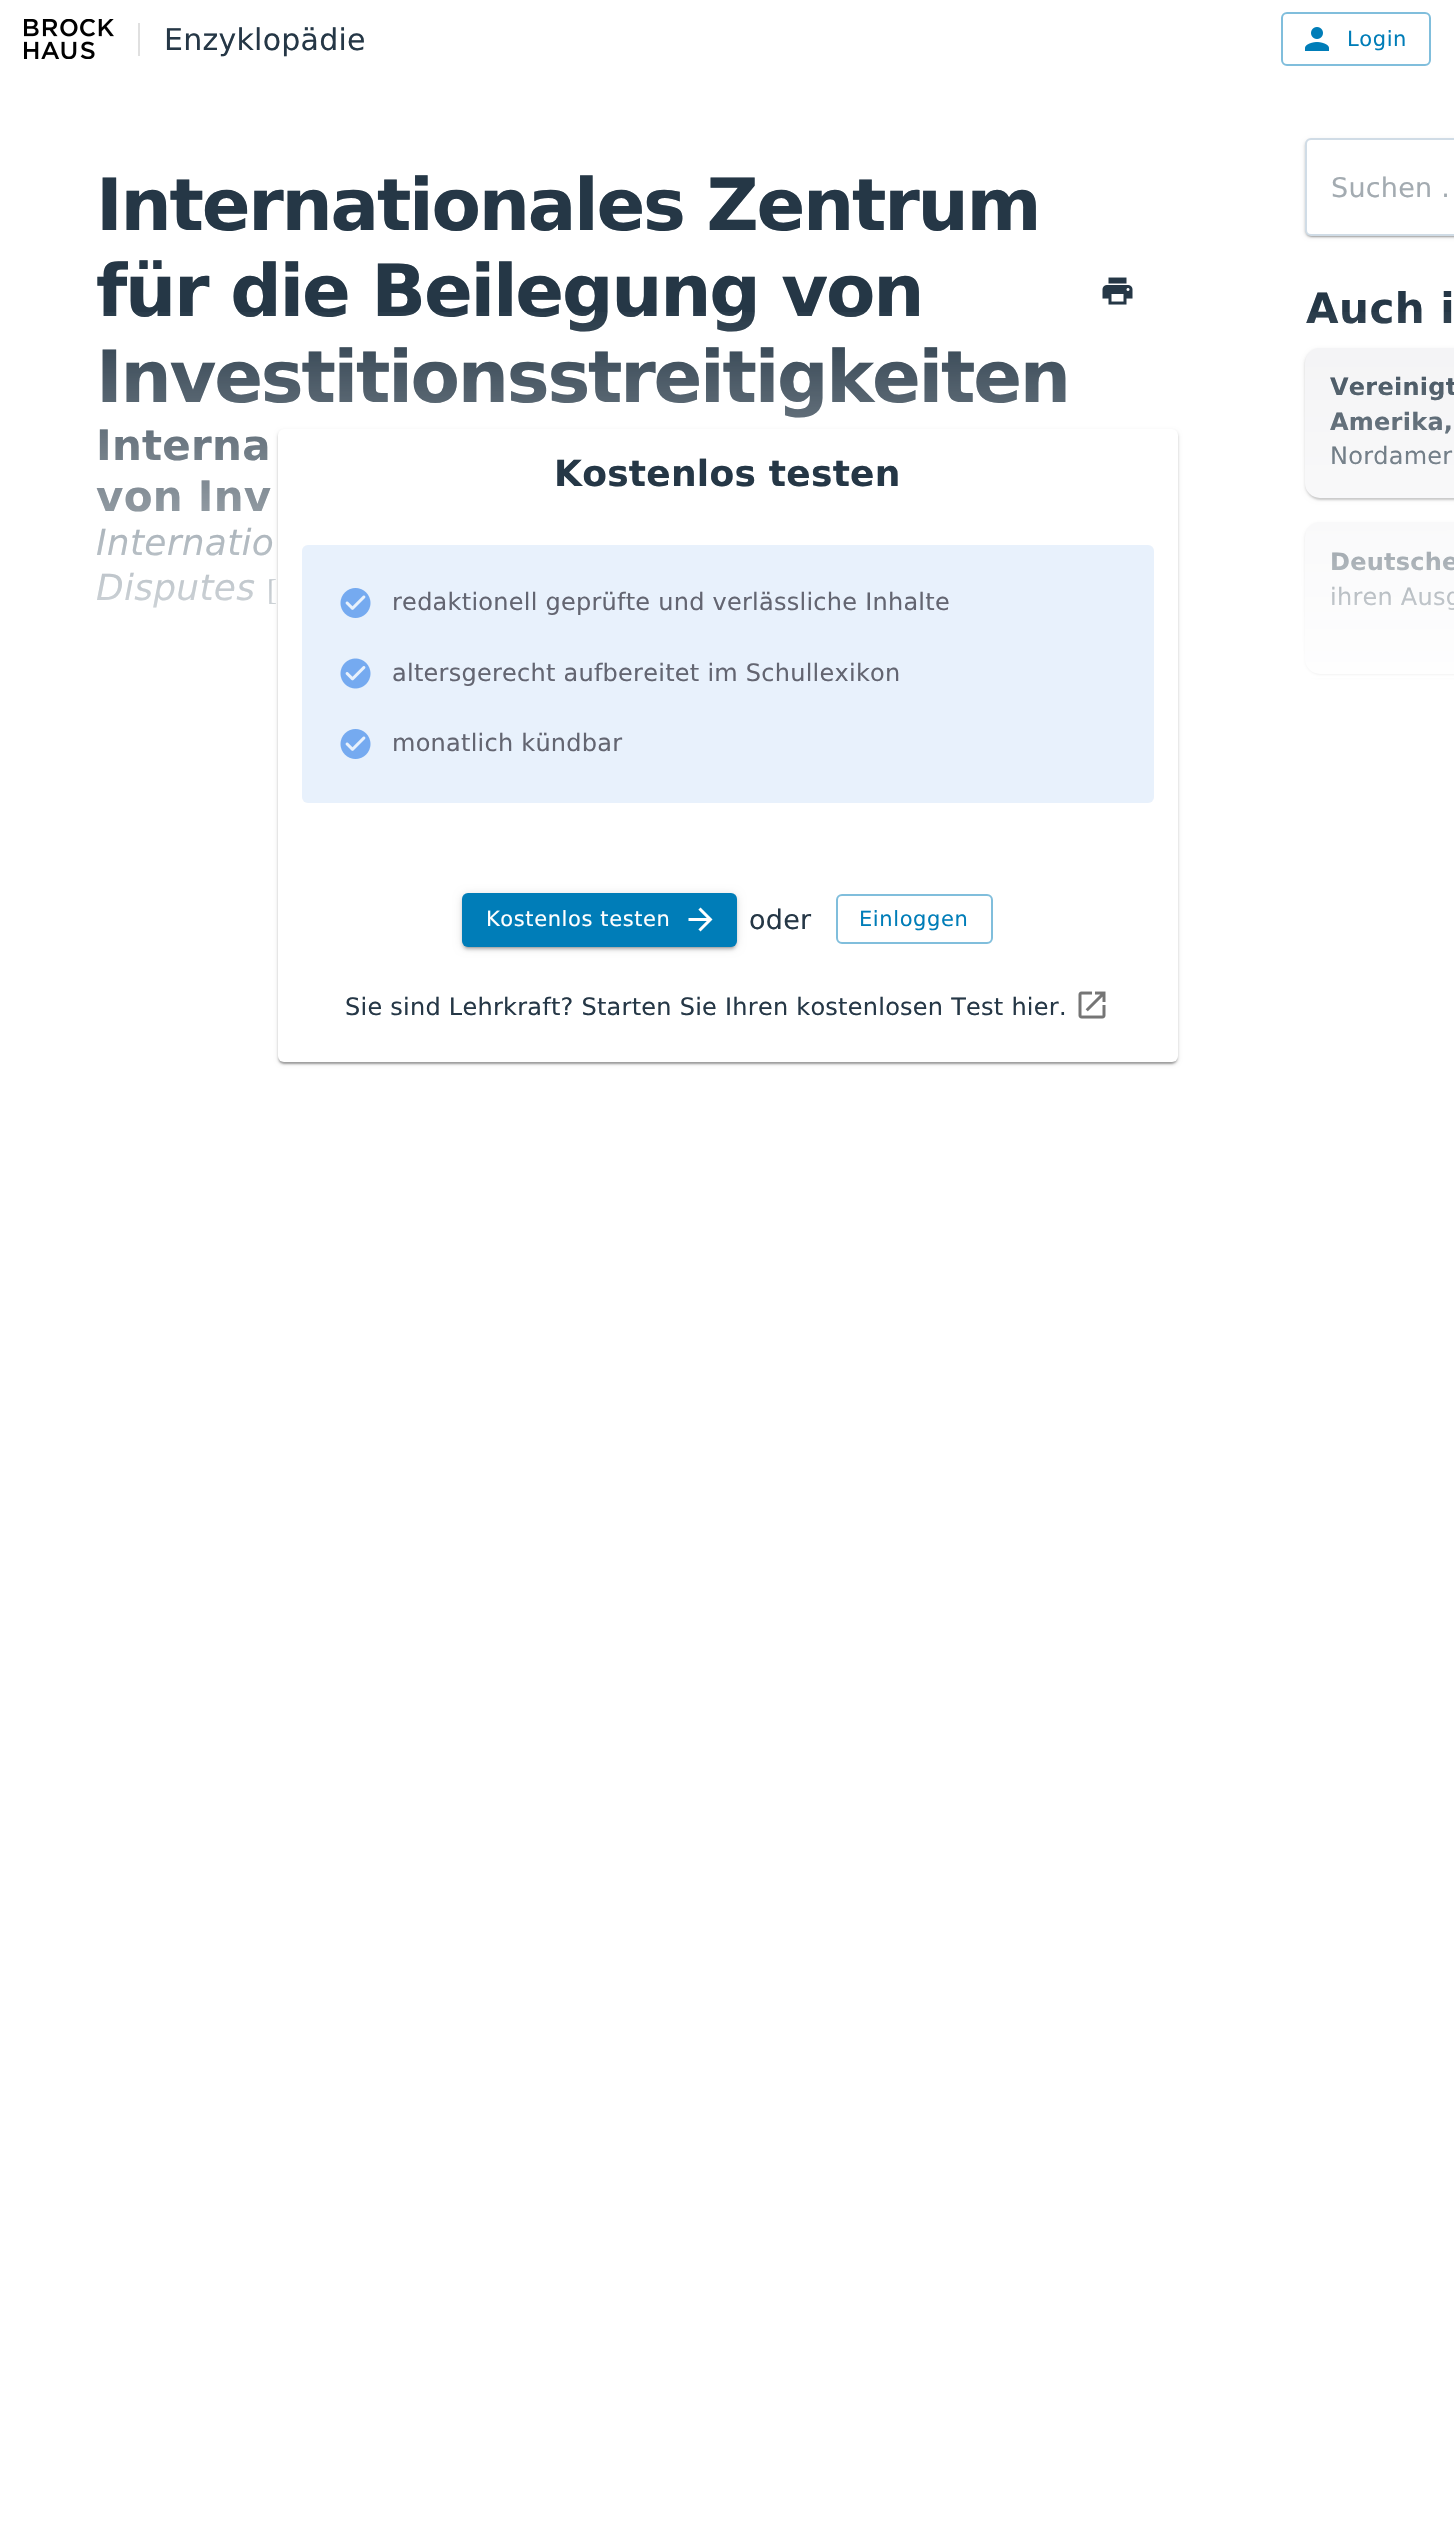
void draw(SkCanvas* canvas) {
	SkPaint fill;
	fill.setAntiAlias(true);
	auto makeFont = [&](const char* family, int weight, float size, bool italic = false) {
		SkFontStyle style(weight, SkFontStyle::kNormal_Width,
			italic ? SkFontStyle::kItalic_Slant : SkFontStyle::kUpright_Slant);
		SkFont result(fontMgr->matchFamilyStyle(family, style), size);
		result.setSubpixel(true);
		return result;
	};
	auto spacedText = [&](const char* s, float x, float y, const SkFont& font, const SkPaint& ink, float letter, float word) {
		std::vector<SkGlyphID> glyphs(font.countText(s, strlen(s), SkTextEncoding::kUTF8));
		std::vector<float> xs(glyphs.size());
		font.textToGlyphs(s, strlen(s), SkTextEncoding::kUTF8, glyphs);
		font.getXPos(glyphs, xs, x);
		float extra = 0;
		for (size_t i = 0; i < glyphs.size(); i++) {
			xs[i] += extra;
			extra += letter + word * (glyphs[i] == font.unicharToGlyph(' '));
		}
		canvas->drawTextBlob(SkTextBlob::MakeFromPosHGlyphs(glyphs, xs, y, font), 0, 0, ink);
	};
	auto box = [&](float l, float t, float r, float b) {
		canvas->drawRect(SkRect::MakeLTRB(l, t, r, b), fill);
	};
	auto roundBox = [&](float l, float t, float r, float b, float radius) {
		canvas->drawRoundRect(SkRect::MakeLTRB(l, t, r, b), radius, radius, fill);
	};
	auto picture = [&](const char* path, float l, float t, float r, float b) {
		auto image = SkImages::DeferredFromEncodedData(SkData::MakeFromFileName(path));
		canvas->drawImageRect(image, SkRect::MakeLTRB(l, t, r, b), SkSamplingOptions());
	};
	canvas->clear(0xFFFFFFFF);
	picture("image0.png", 24, 19, 114, 59);
	fill.setColor(0xFFE0E0E0);
	box(138, 23, 140, 56);
	fill.setStyle(SkPaint::kStroke_Style);
	fill.setStrokeWidth(2);
	fill.setColor(0xFF80BEDC);
	canvas->drawRoundRect(SkRect::MakeLTRB(1282, 13, 1430, 65), 5, 5, fill);
	picture("image1.png", 1305, 27, 1329, 51);
	picture("image2.png", 1102, 277, 1133, 305);
	fill.setStyle(SkPaint::kFill_Style);
	fill.setColor(0x1F000000);
	fill.setMaskFilter(SkMaskFilter::MakeBlur(kNormal_SkBlurStyle, 2));
	canvas->drawRoundRect(SkRect::MakeLTRB(1305, 140, 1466, 237), 6, 6, fill);
	fill.setMaskFilter(nullptr);
	fill.setColor(0x24000000);
	fill.setMaskFilter(SkMaskFilter::MakeBlur(kNormal_SkBlurStyle, 1));
	canvas->drawRoundRect(SkRect::MakeLTRB(1305, 140, 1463, 237), 6, 6, fill);
	fill.setMaskFilter(nullptr);
	fill.setColor(0x33000000);
	fill.setMaskFilter(SkMaskFilter::MakeBlur(kNormal_SkBlurStyle, 1));
	canvas->drawRoundRect(SkRect::MakeLTRB(1307, 143, 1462, 237), 5, 5, fill);
	fill.setMaskFilter(nullptr);
	fill.setColor(0xFFFFFFFF);
	canvas->drawRoundRect(SkRect::MakeLTRB(1306, 139, 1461, 235), 5, 5, fill);
	fill.setStyle(SkPaint::kStroke_Style);
	fill.setColor(0xFFD0DCE6);
	canvas->drawRoundRect(SkRect::MakeLTRB(1306, 139, 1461, 235), 5, 5, fill);
	fill.setStyle(SkPaint::kFill_Style);
	fill.setColor(0x1F000000);
	fill.setMaskFilter(SkMaskFilter::MakeBlur(kNormal_SkBlurStyle, 2));
	canvas->drawRoundRect(SkRect::MakeLTRB(1305, 350, 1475, 500), 15, 15, fill);
	fill.setMaskFilter(nullptr);
	fill.setColor(0x24000000);
	fill.setMaskFilter(SkMaskFilter::MakeBlur(kNormal_SkBlurStyle, 1));
	canvas->drawRoundRect(SkRect::MakeLTRB(1305, 350, 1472, 500), 15, 15, fill);
	fill.setMaskFilter(nullptr);
	fill.setColor(0x33000000);
	fill.setMaskFilter(SkMaskFilter::MakeBlur(kNormal_SkBlurStyle, 1));
	canvas->drawRoundRect(SkRect::MakeLTRB(1307, 353, 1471, 500), 14, 14, fill);
	fill.setMaskFilter(nullptr);
	fill.setColor(0xFFF3F3F5);
	roundBox(1305, 348, 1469, 498, 15);
	fill.setColor(0x1F000000);
	fill.setMaskFilter(SkMaskFilter::MakeBlur(kNormal_SkBlurStyle, 2));
	canvas->drawRoundRect(SkRect::MakeLTRB(1305, 524, 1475, 675), 15, 15, fill);
	fill.setMaskFilter(nullptr);
	fill.setColor(0x24000000);
	fill.setMaskFilter(SkMaskFilter::MakeBlur(kNormal_SkBlurStyle, 1));
	canvas->drawRoundRect(SkRect::MakeLTRB(1305, 524, 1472, 675), 15, 15, fill);
	fill.setMaskFilter(nullptr);
	fill.setColor(0x33000000);
	fill.setMaskFilter(SkMaskFilter::MakeBlur(kNormal_SkBlurStyle, 1));
	canvas->drawRoundRect(SkRect::MakeLTRB(1307, 527, 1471, 675), 14, 14, fill);
	fill.setMaskFilter(nullptr);
	fill.setColor(0xFFF3F3F5);
	roundBox(1305, 522, 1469, 674, 15);
	auto font1 = makeFont("DejaVu Sans", 400, 30);
	fill.setColor(0xFF253746);
	spacedText("Enzyklopädie", 164, 50, font1, fill, 0.25f, 0);
	auto font2 = makeFont("DejaVu Sans", 400, 21);
	fill.setColor(0xFF007DB8);
	spacedText("Login", 1347, 46, font2, fill, 0.6f, 0);
	auto font3 = makeFont("DejaVu Sans", 700, 72);
	fill.setColor(0xFF253746);
	spacedText("Internationales Zentrum", 96, 230, font3, fill, -2.25f, 0);
	spacedText("für die Beilegung von", 96, 316, font3, fill, -2.25f, 0);
	spacedText("Investitionsstreitigkeiten", 96, 402, font3, fill, -2.25f, 0);
	auto font4 = makeFont("DejaVu Sans", 700, 42);
	spacedText("Interna", 96, 460, font4, fill, 0.25f, 0);
	spacedText("von Inv", 96, 511, font4, fill, 0.25f, 0);
	auto font5 = makeFont("DejaVu Sans", 400, 36, true);
	fill.setColor(0xFF4E6170);
	spacedText("Internatio", 96, 555, font5, fill, 0.25f, 0);
	spacedText("Disputes", 96, 600, font5, fill, 0.25f, 0);
	auto font6 = makeFont("Liberation Serif", 400, 30);
	spacedText("[", 267, 600, font6, fill, 0.25f, 0);
	auto font7 = makeFont("DejaVu Sans", 400, 27);
	fill.setColor(0xFFA3ABB1);
	spacedText("Suchen .", 1331, 197, font7, fill, 0.25f, 0);
	fill.setColor(0xFF253746);
	spacedText("Auch i", 1306, 323, font4, fill, 0.5f, 0);
	auto font8 = makeFont("DejaVu Sans", 700, 24);
	spacedText("Vereinigt", 1330, 395, font8, fill, 0.25f, 0);
	spacedText("Amerika,", 1330, 430, font8, fill, 0.25f, 0);
	auto font9 = makeFont("DejaVu Sans", 400, 24);
	spacedText("Nordamer", 1330, 464, font9, fill, 0.25f, 0);
	spacedText("Deutsche", 1330, 570, font8, fill, 0.25f, 0);
	spacedText("ihren Ausg", 1330, 605, font9, fill, 0.25f, 0);
	{
		const SkColor colors[] = {0x00FFFFFF, 0xFFFFFFFF};
		const float stops[] = {0, 0.19f};
		const SkPoint ends[] = {{727, 303}, {728, 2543}};
		fill.setShader(SkGradientShader::MakeLinear(ends, colors, stops, 2, SkTileMode::kClamp));
		fill.setAlpha(255);
	}
	box(96, 312, 1454, 678);
	fill.setShader(nullptr);
	fill.setColor(0x1F000000);
	fill.setMaskFilter(SkMaskFilter::MakeBlur(kNormal_SkBlurStyle, 2));
	canvas->drawRoundRect(SkRect::MakeLTRB(278, 431, 1178, 1064), 6, 6, fill);
	fill.setMaskFilter(nullptr);
	fill.setColor(0x24000000);
	fill.setMaskFilter(SkMaskFilter::MakeBlur(kNormal_SkBlurStyle, 1));
	canvas->drawRoundRect(SkRect::MakeLTRB(278, 431, 1178, 1064), 6, 6, fill);
	fill.setMaskFilter(nullptr);
	fill.setColor(0x33000000);
	fill.setMaskFilter(SkMaskFilter::MakeBlur(kNormal_SkBlurStyle, 1));
	canvas->drawRoundRect(SkRect::MakeLTRB(279, 434, 1176, 1064), 5, 5, fill);
	fill.setMaskFilter(nullptr);
	fill.setColor(0xFFFFFFFF);
	roundBox(278, 429, 1178, 1062, 6);
	auto font10 = makeFont("DejaVu Sans", 700, 36);
	fill.setColor(0xFF253746);
	spacedText("Kostenlos testen", 554, 486, font10, fill, 0.25f, 0);
	fill.setColor(0xFFE8F1FC);
	roundBox(302, 545, 1154, 803, 6);
	picture("image3.png", 340, 588, 371, 618);
	fill.setColor(0xFF636571);
	spacedText("redaktionell geprüfte und verlässliche Inhalte", 392, 610, font9, fill, 0.25f, 0);
	picture("image4.png", 340, 658, 371, 689);
	spacedText("altersgerecht aufbereitet im Schullexikon", 392, 681, font9, fill, 0.25f, 0);
	picture("image3.png", 340, 729, 371, 759);
	spacedText("monatlich kündbar", 392, 751, font9, fill, 0.25f, 0);
	fill.setColor(0x1F000000);
	fill.setMaskFilter(SkMaskFilter::MakeBlur(kNormal_SkBlurStyle, 4));
	canvas->drawRoundRect(SkRect::MakeLTRB(462, 894, 737, 948), 6, 6, fill);
	fill.setMaskFilter(nullptr);
	fill.setColor(0x24000000);
	fill.setMaskFilter(SkMaskFilter::MakeBlur(kNormal_SkBlurStyle, 1.5f));
	canvas->drawRoundRect(SkRect::MakeLTRB(462, 896, 737, 950), 6, 6, fill);
	fill.setMaskFilter(nullptr);
	fill.setColor(0x33000000);
	fill.setMaskFilter(SkMaskFilter::MakeBlur(kNormal_SkBlurStyle, 1));
	canvas->drawRoundRect(SkRect::MakeLTRB(465, 900, 734, 948), 3, 3, fill);
	fill.setMaskFilter(nullptr);
	fill.setColor(0xFF007DB8);
	roundBox(462, 893, 737, 947, 6);
	fill.setColor(0xFFFFFFFF);
	spacedText("Kostenlos testen", 486, 926, font2, fill, 0.6f, 0);
	picture("image5.png", 688, 907, 713, 932);
	fill.setColor(0xFF253746);
	spacedText("oder", 749, 929, font7, fill, 0.25f, 0);
	fill.setStyle(SkPaint::kStroke_Style);
	fill.setColor(0xFF80BEDC);
	canvas->drawRoundRect(SkRect::MakeLTRB(837, 895, 992, 943), 5, 5, fill);
	fill.setStyle(SkPaint::kFill_Style);
	fill.setColor(0xFF007DB8);
	spacedText("Einloggen", 859, 926, font2, fill, 0.6f, 0);
	fill.setColor(0xFF253746);
	spacedText("Sie sind Lehrkraft? Starten Sie Ihren kostenlosen Test hier.", 345, 1015, font9, fill, 0.25f, 0);
	picture("image6.png", 1078, 991, 1106, 1019);
}
